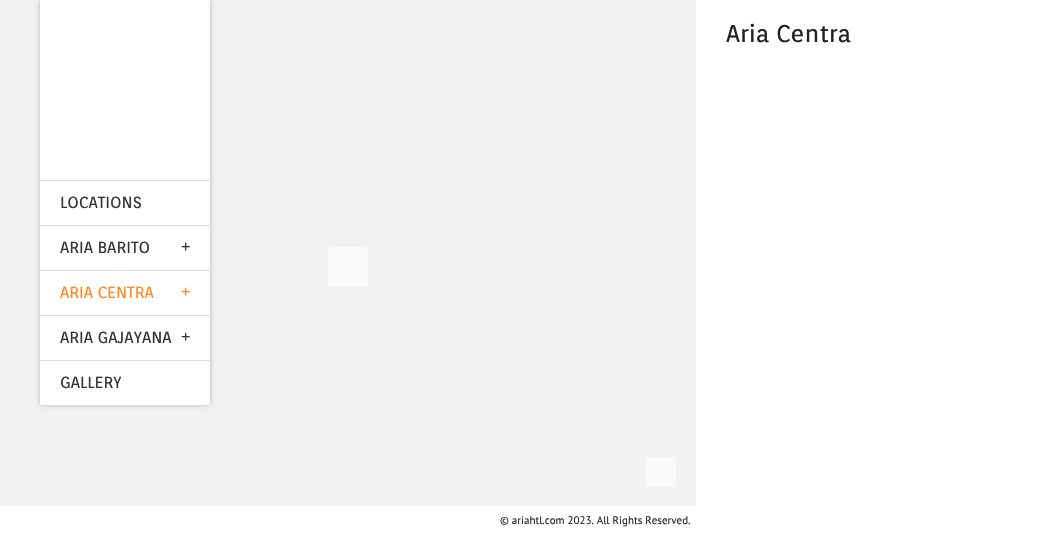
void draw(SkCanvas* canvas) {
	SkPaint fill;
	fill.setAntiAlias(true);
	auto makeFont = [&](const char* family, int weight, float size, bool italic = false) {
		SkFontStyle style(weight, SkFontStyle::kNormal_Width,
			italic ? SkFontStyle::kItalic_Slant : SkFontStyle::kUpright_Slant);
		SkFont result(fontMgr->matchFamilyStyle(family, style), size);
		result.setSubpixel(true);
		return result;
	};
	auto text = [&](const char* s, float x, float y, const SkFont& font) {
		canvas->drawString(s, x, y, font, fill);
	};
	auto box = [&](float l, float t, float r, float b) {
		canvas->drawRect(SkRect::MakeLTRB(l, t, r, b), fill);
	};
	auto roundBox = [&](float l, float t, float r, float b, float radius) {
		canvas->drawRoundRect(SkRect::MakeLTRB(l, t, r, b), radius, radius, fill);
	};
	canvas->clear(0xFFF2F2F2);
	fill.setColor(0xFFFFFFFF);
	box(696, 0, 1056, 534);
	fill.setColor(0x40000000);
	fill.setMaskFilter(SkMaskFilter::MakeBlur(kNormal_SkBlurStyle, 2.5f));
	canvas->drawRect(SkRect::MakeLTRB(40, 0, 210, 405), fill);
	fill.setMaskFilter(nullptr);
	fill.setColor(0xFFFFFFFF);
	box(40, 0, 210, 405);
	fill.setColor(0xFFDDDDDD);
	box(40, 180, 210, 181);
	box(40, 225, 210, 226);
	box(40, 270, 210, 271);
	box(40, 315, 210, 316);
	box(40, 360, 210, 361);
	fill.setColor(0xFFF9F9F9);
	roundBox(328, 247, 368, 287, 2);
	box(646, 457, 676, 487);
	fill.setColor(0xFFFFFFFF);
	box(0, 506, 696, 534);
	auto font1 = makeFont("Orienta", 400, 24);
	fill.setColor(0xFF222222);
	text("Aria Centra", 726, 42, font1);
	auto font2 = makeFont("Orienta", 400, 16);
	fill.setColor(0xFF333333);
	text("LOCATIONS", 60, 208, font2);
	text("ARIA BARITO", 60, 253, font2);
	auto font3 = makeFont("Liberation Sans", 400, 16);
	text("+", 181, 252, font3);
	fill.setColor(0xFFFF891E);
	text("ARIA CENTRA", 60, 298, font2);
	text("+", 181, 297, font3);
	fill.setColor(0xFF333333);
	text("ARIA GAJAYANA", 60, 343, font2);
	text("+", 181, 342, font3);
	text("GALLERY", 60, 388, font2);
	auto font4 = makeFont("PT Sans", 400, 11);
	fill.setColor(0xFF222222);
	text("© ariahtl.com 2023. All Rights Reserved.", 500, 524, font4);
}
